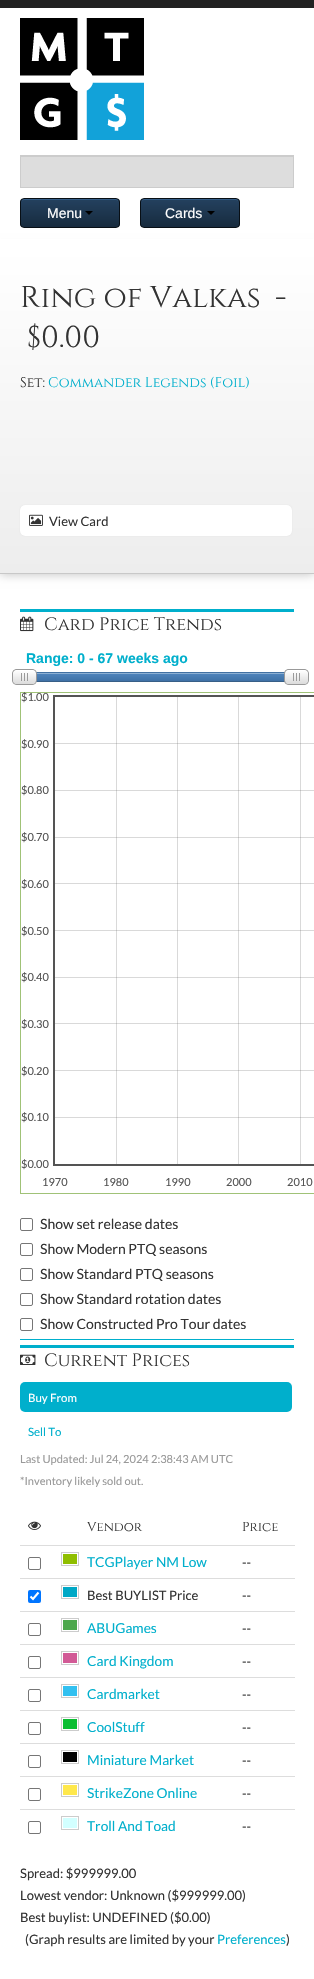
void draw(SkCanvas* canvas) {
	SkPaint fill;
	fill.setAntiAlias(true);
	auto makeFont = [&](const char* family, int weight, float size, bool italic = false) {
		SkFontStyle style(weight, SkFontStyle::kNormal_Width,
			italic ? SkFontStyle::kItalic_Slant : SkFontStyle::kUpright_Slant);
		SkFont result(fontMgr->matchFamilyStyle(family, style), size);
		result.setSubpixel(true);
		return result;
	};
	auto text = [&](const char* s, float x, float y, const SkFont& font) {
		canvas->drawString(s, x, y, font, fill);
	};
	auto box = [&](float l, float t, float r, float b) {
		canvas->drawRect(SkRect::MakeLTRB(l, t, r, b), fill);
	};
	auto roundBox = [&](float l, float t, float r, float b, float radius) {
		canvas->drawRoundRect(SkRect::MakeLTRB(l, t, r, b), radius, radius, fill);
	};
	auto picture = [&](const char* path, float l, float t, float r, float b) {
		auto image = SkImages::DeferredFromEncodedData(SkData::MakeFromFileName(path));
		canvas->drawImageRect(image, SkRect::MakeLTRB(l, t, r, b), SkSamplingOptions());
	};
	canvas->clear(0xFFFFFFFF);
	fill.setColor(0x40000000);
	fill.setMaskFilter(SkMaskFilter::MakeBlur(kNormal_SkBlurStyle, 5));
	canvas->drawRect(SkRect::MakeLTRB(0, 248, 314, 574), fill);
	fill.setMaskFilter(nullptr);
	fill.setColor(0xFFFFFFFF);
	box(0, 239, 314, 248);
	fill.setColor(0xFF222222);
	box(0, 0, 314, 8);
	picture("image0.png", 20, 18, 144, 140);
	fill.setColor(0xFFDDDDDD);
	box(21, 157, 293, 187);
	fill.setColor(0xFFCCCCCC);
	box(21, 156, 293, 157);
	fill.setStyle(SkPaint::kStroke_Style);
	fill.setStrokeWidth(1);
	canvas->drawRect(SkRect::MakeLTRB(20.5f, 155.5f, 293.5f, 187.5f), fill);
	canvas->save();
	canvas->clipPath(SkPathBuilder().moveTo(24, 198).lineTo(116, 198).cubicTo(118, 198, 120, 200, 120, 202).lineTo(120, 224).cubicTo(120, 226, 118, 228, 116, 228).lineTo(24, 228).cubicTo(22, 228, 20, 226, 20, 224).lineTo(20, 202).cubicTo(20, 200, 22, 198, 24, 198).close().detach(), true);
	fill.setStyle(SkPaint::kFill_Style);
	{
		const SkColor colors[] = {0xFF24415F, 0xFF172B3E};
		const float stops[] = {0, 1};
		const SkPoint ends[] = {{21, 199}, {21, 227}};
		fill.setShader(SkGradientShader::MakeLinear(ends, colors, stops, 2, SkTileMode::kClamp));
		fill.setAlpha(255);
	}
	box(20, 199, 120, 227);
	canvas->restore();
	fill.setShader(nullptr);
	fill.setColor(0xFF325B85);
	canvas->drawPath(SkPathBuilder().moveTo(24, 200).lineTo(116, 200).cubicTo(118, 200, 119, 201, 119, 203).cubicTo(119, 195, 104, 199, 101, 199).lineTo(39, 199).cubicTo(36, 199, 21, 195, 21, 203).cubicTo(21, 201, 22, 200, 24, 200).close().detach(), fill);
	fill.setStyle(SkPaint::kStroke_Style);
	fill.setColor(0xFF080F15);
	canvas->drawRoundRect(SkRect::MakeLTRB(20.5f, 198.5f, 119.5f, 227.5f), 3.5f, 3.5f, fill);
	fill.setStyle(SkPaint::kFill_Style);
	fill.setColor(0xFF000000);
	canvas->drawPath(SkPathBuilder().moveTo(85, 211).lineTo(93, 211).lineTo(89, 215).close().detach(), fill);
	canvas->save();
	canvas->clipPath(SkPathBuilder().moveTo(144, 198).lineTo(236, 198).cubicTo(238, 198, 240, 200, 240, 202).lineTo(240, 224).cubicTo(240, 226, 238, 228, 236, 228).lineTo(144, 228).cubicTo(142, 228, 140, 226, 140, 224).lineTo(140, 202).cubicTo(140, 200, 142, 198, 144, 198).close().detach(), true);
	{
		const SkColor colors[] = {0xFF24415F, 0xFF172B3E};
		const float stops[] = {0, 1};
		const SkPoint ends[] = {{141, 199}, {141, 227}};
		fill.setShader(SkGradientShader::MakeLinear(ends, colors, stops, 2, SkTileMode::kClamp));
		fill.setAlpha(255);
	}
	box(140, 199, 240, 227);
	canvas->restore();
	fill.setShader(nullptr);
	fill.setColor(0xFF325B85);
	canvas->drawPath(SkPathBuilder().moveTo(144, 200).lineTo(236, 200).cubicTo(238, 200, 239, 201, 239, 203).cubicTo(239, 195, 224, 199, 221, 199).lineTo(159, 199).cubicTo(156, 199, 141, 195, 141, 203).cubicTo(141, 201, 142, 200, 144, 200).close().detach(), fill);
	fill.setStyle(SkPaint::kStroke_Style);
	fill.setColor(0xFF080F15);
	canvas->drawRoundRect(SkRect::MakeLTRB(140.5f, 198.5f, 239.5f, 227.5f), 3.5f, 3.5f, fill);
	fill.setStyle(SkPaint::kFill_Style);
	fill.setColor(0xFF000000);
	canvas->drawPath(SkPathBuilder().moveTo(207, 211).lineTo(215, 211).lineTo(211, 215).close().detach(), fill);
	{
		const SkColor colors[] = {0xFFFFFFFF, 0xFFEDEDED};
		const float stops[] = {0, 1};
		const SkPoint ends[] = {{157, 248}, {157, 573}};
		fill.setShader(SkGradientShader::MakeLinear(ends, colors, stops, 2, SkTileMode::kClamp));
		fill.setAlpha(255);
	}
	box(0, 248, 314, 573);
	fill.setShader(nullptr);
	fill.setColor(0xFFC8C8C8);
	box(0, 573, 314, 574);
	fill.setColor(0x1A000000);
	fill.setMaskFilter(SkMaskFilter::MakeBlur(kNormal_SkBlurStyle, 0.5f));
	canvas->drawRoundRect(SkRect::MakeLTRB(20, 505, 292, 536), 5, 5, fill);
	fill.setMaskFilter(nullptr);
	fill.setColor(0xFFFFFFFF);
	roundBox(20, 505, 292, 536, 5);
	picture("image1.png", 29, 514, 43, 526);
	fill.setColor(0xFF00AFCC);
	box(20, 609, 294, 612);
	box(20, 1339, 294, 1340);
	picture("image2.png", 20, 616, 34, 632);
	fill.setColor(0xFF497EB4);
	box(35, 672, 286, 682);
	{
		const SkColor colors[] = {0xFF5086BD, 0xFF3F71A6};
		const float stops[] = {0, 1};
		const SkPoint ends[] = {{158, 673}, {158, 681}};
		fill.setShader(SkGradientShader::MakeLinear(ends, colors, stops, 2, SkTileMode::kClamp));
		fill.setAlpha(255);
	}
	box(36, 673, 285, 681);
	fill.setShader(nullptr);
	fill.setColor(0x59FFFFFF);
	canvas->drawPath(SkPathBuilder().moveTo(26, 674).lineTo(290, 674).cubicTo(292, 674, 294, 676, 294, 678).lineTo(294, 675).lineTo(292, 674).lineTo(290, 673).lineTo(26, 673).cubicTo(24, 673, 22, 675, 22, 678).cubicTo(22, 676, 24, 674, 26, 674).close().detach(), fill);
	fill.setStyle(SkPaint::kStroke_Style);
	fill.setColor(0x40000000);
	canvas->drawPath(SkPathBuilder().moveTo(293, 680).cubicTo(292.5f, 681, 291, 681.5f, 290, 681.5f).lineTo(26, 681.5f).cubicTo(25, 681.5f, 23.5f, 681, 23, 680).detach(), fill);
	fill.setColor(0x1A000000);
	canvas->drawPath(SkPathBuilder().moveTo(23, 680).cubicTo(20.5f, 678, 21.5f, 673.5f, 24.5f, 672.5f).lineTo(290, 672.5f).cubicTo(294, 672.5f, 296, 677.5f, 293, 680).detach(), fill);
	picture("image3.png", 12, 669, 37, 685);
	picture("image4.png", 284, 669, 309, 685);
	fill.setColor(0xFFA0C277);
	canvas->drawRect(SkRect::MakeLTRB(20.5f, 692.5f, 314.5f, 1193.5f), fill);
	picture("image5.png", 53, 695, 314, 1166);
	fill.setColor(0xFF767676);
	canvas->drawRoundRect(SkRect::MakeLTRB(20.5f, 1218.5f, 32.5f, 1230.5f), 1.5f, 1.5f, fill);
	canvas->drawRoundRect(SkRect::MakeLTRB(20.5f, 1243.5f, 32.5f, 1255.5f), 1.5f, 1.5f, fill);
	canvas->drawRoundRect(SkRect::MakeLTRB(20.5f, 1268.5f, 32.5f, 1280.5f), 1.5f, 1.5f, fill);
	canvas->drawRoundRect(SkRect::MakeLTRB(20.5f, 1293.5f, 32.5f, 1305.5f), 1.5f, 1.5f, fill);
	canvas->drawRoundRect(SkRect::MakeLTRB(20.5f, 1318.5f, 32.5f, 1330.5f), 1.5f, 1.5f, fill);
	fill.setStyle(SkPaint::kFill_Style);
	fill.setColor(0xFF00AFCC);
	box(20, 1345, 294, 1348);
	picture("image6.png", 20, 1354, 36, 1365);
	roundBox(20, 1382, 292, 1412, 5);
	picture("image7.png", 28, 1521, 41, 1530);
	fill.setStyle(SkPaint::kStroke_Style);
	fill.setColor(0xFF767676);
	canvas->drawRoundRect(SkRect::MakeLTRB(28.5f, 1557.5f, 40.5f, 1569.5f), 1.5f, 1.5f, fill);
	fill.setColor(0xFFCCCCCC);
	canvas->drawRect(SkRect::MakeLTRB(61.5f, 1552.5f, 78.5f, 1565.5f), fill);
	fill.setStyle(SkPaint::kFill_Style);
	fill.setColor(0xFF8FBE00);
	box(63, 1554, 77, 1564);
	fill.setColor(0xFFDDDDDD);
	box(20, 1545, 295, 1546);
	fill.setColor(0xFF0075FF);
	roundBox(28, 1590, 41, 1603, 2);
	fill.setStyle(SkPaint::kStroke_Style);
	fill.setStrokeWidth(2.1f);
	fill.setColor(0xFFFFFFFF);
	canvas->drawPath(SkPathBuilder().moveTo(30.5f, 1596.5f).lineTo(33, 1599).lineTo(38.5f, 1592.5f).detach(), fill);
	fill.setStrokeWidth(1);
	fill.setColor(0xFFCCCCCC);
	canvas->drawRect(SkRect::MakeLTRB(61.5f, 1585.5f, 78.5f, 1598.5f), fill);
	fill.setStyle(SkPaint::kFill_Style);
	fill.setColor(0xFF00A8C6);
	box(63, 1587, 77, 1597);
	fill.setColor(0xFFDDDDDD);
	box(20, 1578, 295, 1579);
	fill.setStyle(SkPaint::kStroke_Style);
	fill.setColor(0xFF767676);
	canvas->drawRoundRect(SkRect::MakeLTRB(28.5f, 1623.5f, 40.5f, 1635.5f), 1.5f, 1.5f, fill);
	fill.setColor(0xFFCCCCCC);
	canvas->drawRect(SkRect::MakeLTRB(61.5f, 1618.5f, 78.5f, 1631.5f), fill);
	fill.setStyle(SkPaint::kFill_Style);
	fill.setColor(0xFF4DA74D);
	box(63, 1620, 77, 1630);
	fill.setColor(0xFFDDDDDD);
	box(20, 1611, 295, 1612);
	fill.setStyle(SkPaint::kStroke_Style);
	fill.setColor(0xFF767676);
	canvas->drawRoundRect(SkRect::MakeLTRB(28.5f, 1656.5f, 40.5f, 1668.5f), 1.5f, 1.5f, fill);
	fill.setColor(0xFFCCCCCC);
	canvas->drawRect(SkRect::MakeLTRB(61.5f, 1651.5f, 78.5f, 1664.5f), fill);
	fill.setStyle(SkPaint::kFill_Style);
	fill.setColor(0xFFD25A96);
	box(63, 1653, 77, 1663);
	fill.setColor(0xFFDDDDDD);
	box(20, 1644, 295, 1645);
	fill.setStyle(SkPaint::kStroke_Style);
	fill.setColor(0xFF767676);
	canvas->drawRoundRect(SkRect::MakeLTRB(28.5f, 1689.5f, 40.5f, 1701.5f), 1.5f, 1.5f, fill);
	fill.setColor(0xFFCCCCCC);
	canvas->drawRect(SkRect::MakeLTRB(61.5f, 1684.5f, 78.5f, 1697.5f), fill);
	fill.setStyle(SkPaint::kFill_Style);
	fill.setColor(0xFF32C0F0);
	box(63, 1686, 77, 1696);
	fill.setColor(0xFFDDDDDD);
	box(20, 1677, 295, 1678);
	fill.setStyle(SkPaint::kStroke_Style);
	fill.setColor(0xFF767676);
	canvas->drawRoundRect(SkRect::MakeLTRB(28.5f, 1722.5f, 40.5f, 1734.5f), 1.5f, 1.5f, fill);
	fill.setColor(0xFFCCCCCC);
	canvas->drawRect(SkRect::MakeLTRB(61.5f, 1717.5f, 78.5f, 1730.5f), fill);
	fill.setStyle(SkPaint::kFill_Style);
	fill.setColor(0xFF0ABE32);
	box(63, 1719, 77, 1729);
	fill.setColor(0xFFDDDDDD);
	box(20, 1710, 295, 1711);
	fill.setStyle(SkPaint::kStroke_Style);
	fill.setColor(0xFF767676);
	canvas->drawRoundRect(SkRect::MakeLTRB(28.5f, 1755.5f, 40.5f, 1767.5f), 1.5f, 1.5f, fill);
	fill.setColor(0xFFCCCCCC);
	canvas->drawRect(SkRect::MakeLTRB(61.5f, 1750.5f, 78.5f, 1763.5f), fill);
	fill.setStyle(SkPaint::kFill_Style);
	fill.setColor(0xFF000000);
	box(63, 1752, 77, 1762);
	fill.setColor(0xFFDDDDDD);
	box(20, 1743, 295, 1744);
	fill.setStyle(SkPaint::kStroke_Style);
	fill.setColor(0xFF767676);
	canvas->drawRoundRect(SkRect::MakeLTRB(28.5f, 1788.5f, 40.5f, 1800.5f), 1.5f, 1.5f, fill);
	fill.setColor(0xFFCCCCCC);
	canvas->drawRect(SkRect::MakeLTRB(61.5f, 1783.5f, 78.5f, 1796.5f), fill);
	fill.setStyle(SkPaint::kFill_Style);
	fill.setColor(0xFFFFE84C);
	box(63, 1785, 77, 1795);
	fill.setColor(0xFFDDDDDD);
	box(20, 1776, 295, 1777);
	fill.setStyle(SkPaint::kStroke_Style);
	fill.setColor(0xFF767676);
	canvas->drawRoundRect(SkRect::MakeLTRB(28.5f, 1821.5f, 40.5f, 1833.5f), 1.5f, 1.5f, fill);
	fill.setColor(0xFFCCCCCC);
	canvas->drawRect(SkRect::MakeLTRB(61.5f, 1816.5f, 78.5f, 1829.5f), fill);
	fill.setStyle(SkPaint::kFill_Style);
	fill.setColor(0xFFD2FFFF);
	box(63, 1818, 77, 1828);
	fill.setColor(0xFFDDDDDD);
	box(20, 1809, 295, 1810);
	auto font1 = makeFont("Liberation Sans", 400, 14);
	fill.setColor(0xFFFFFFFF);
	text("Menu", 47, 218, font1);
	text("Cards", 165, 218, font1);
	auto font2 = makeFont("Cinzel", 400, 30);
	fill.setColor(0xFF333333);
	text("Ring of Valkas", 20, 307, font2);
	text("-", 275, 307, font2);
	text("$0.00", 27, 347, font2);
	auto font3 = makeFont("Cinzel", 400, 14);
	text("Set:", 20, 387, font3);
	fill.setColor(0xFF00AFCC);
	text("Commander Legends (Foil)", 48, 387, font3);
	auto font4 = makeFont("Lato", 400, 13);
	fill.setColor(0xFF333333);
	text("View Card", 49, 526, font4);
	auto font5 = makeFont("Cinzel", 400, 18);
	text("Card Price Trends", 44, 630, font5);
	auto font6 = makeFont("Liberation Sans", 700, 14);
	fill.setColor(0xFF00AFCC);
	text("Range: 0 - 67 weeks ago", 26, 663, font6);
	auto font7 = makeFont("Lato", 400, 11);
	fill.setColor(0xFF545454);
	text("$1.00", 21, 701, font7);
	text("$0.90", 21, 748, font7);
	text("$0.80", 21, 794, font7);
	text("$0.70", 21, 841, font7);
	text("$0.60", 21, 888, font7);
	text("$0.50", 21, 935, font7);
	text("$0.40", 21, 981, font7);
	text("$0.30", 21, 1028, font7);
	text("$0.20", 21, 1075, font7);
	text("$0.10", 21, 1121, font7);
	text("$0.00", 21, 1168, font7);
	text("1970", 42, 1186, font7);
	text("1980", 103, 1186, font7);
	text("1990", 165, 1186, font7);
	text("2000", 226, 1186, font7);
	text("2010", 287, 1186, font7);
	auto font8 = makeFont("Lato", 400, 14);
	fill.setColor(0xFF333333);
	text("Show set release dates", 40, 1229, font8);
	text("Show Modern PTQ seasons", 40, 1254, font8);
	text("Show Standard PTQ seasons", 40, 1279, font8);
	text("Show Standard rotation dates", 40, 1304, font8);
	text("Show Constructed Pro Tour dates", 40, 1329, font8);
	text("Current Prices", 44, 1366, font5);
	auto font9 = makeFont("Lato", 400, 11.5f);
	fill.setColor(0xFFFFFFFF);
	text("Buy From", 28, 1402, font9);
	fill.setColor(0xFF00AFCC);
	text("Sell To", 28, 1436, font9);
	auto font10 = makeFont("Lato", 400, 11.1f);
	fill.setColor(0xFF999999);
	text("Last Updated: Jul 24, 2024 2:38:43 AM UTC", 20, 1463, font10);
	text("*Inventory likely sold out.", 20, 1485, font10);
	auto font11 = makeFont("Cinzel", 400, 13);
	fill.setColor(0xFF333333);
	text("Vendor", 87, 1531, font11);
	text("Price", 242, 1531, font11);
	auto font12 = makeFont("Lato", 400, 13.75f);
	fill.setColor(0xFF00AFCC);
	text("TCGPlayer NM Low", 87, 1567, font12);
	fill.setColor(0xFF333333);
	text("--", 242, 1567, font4);
	text("Best BUYLIST Price", 87, 1600, font4);
	text("--", 242, 1600, font4);
	fill.setColor(0xFF00AFCC);
	text("ABUGames", 87, 1633, font12);
	fill.setColor(0xFF333333);
	text("--", 242, 1633, font4);
	fill.setColor(0xFF00AFCC);
	text("Card Kingdom", 87, 1666, font12);
	fill.setColor(0xFF333333);
	text("--", 242, 1666, font4);
	fill.setColor(0xFF00AFCC);
	text("Cardmarket", 87, 1699, font12);
	fill.setColor(0xFF333333);
	text("--", 242, 1699, font4);
	fill.setColor(0xFF00AFCC);
	text("CoolStuff", 87, 1732, font12);
	fill.setColor(0xFF333333);
	text("--", 242, 1732, font4);
	fill.setColor(0xFF00AFCC);
	text("Miniature Market", 87, 1765, font12);
	fill.setColor(0xFF333333);
	text("--", 242, 1765, font4);
	fill.setColor(0xFF00AFCC);
	text("StrikeZone Online", 87, 1798, font12);
	fill.setColor(0xFF333333);
	text("--", 242, 1798, font4);
	fill.setColor(0xFF00AFCC);
	text("Troll And Toad", 87, 1831, font12);
	fill.setColor(0xFF333333);
	text("--", 242, 1831, font4);
	text("Spread: $999999.00", 20, 1878, font4);
	text("Lowest vendor: Unknown ($999999.00)", 20, 1900, font4);
	text("Best buylist: UNDEFINED ($0.00)", 20, 1922, font4);
	text("(Graph results are limited by your", 25, 1944, font4);
	fill.setColor(0xFF00AFCC);
	text("Preferences", 217, 1944, font4);
	fill.setColor(0xFF333333);
	text(")", 286, 1944, font4);
}
